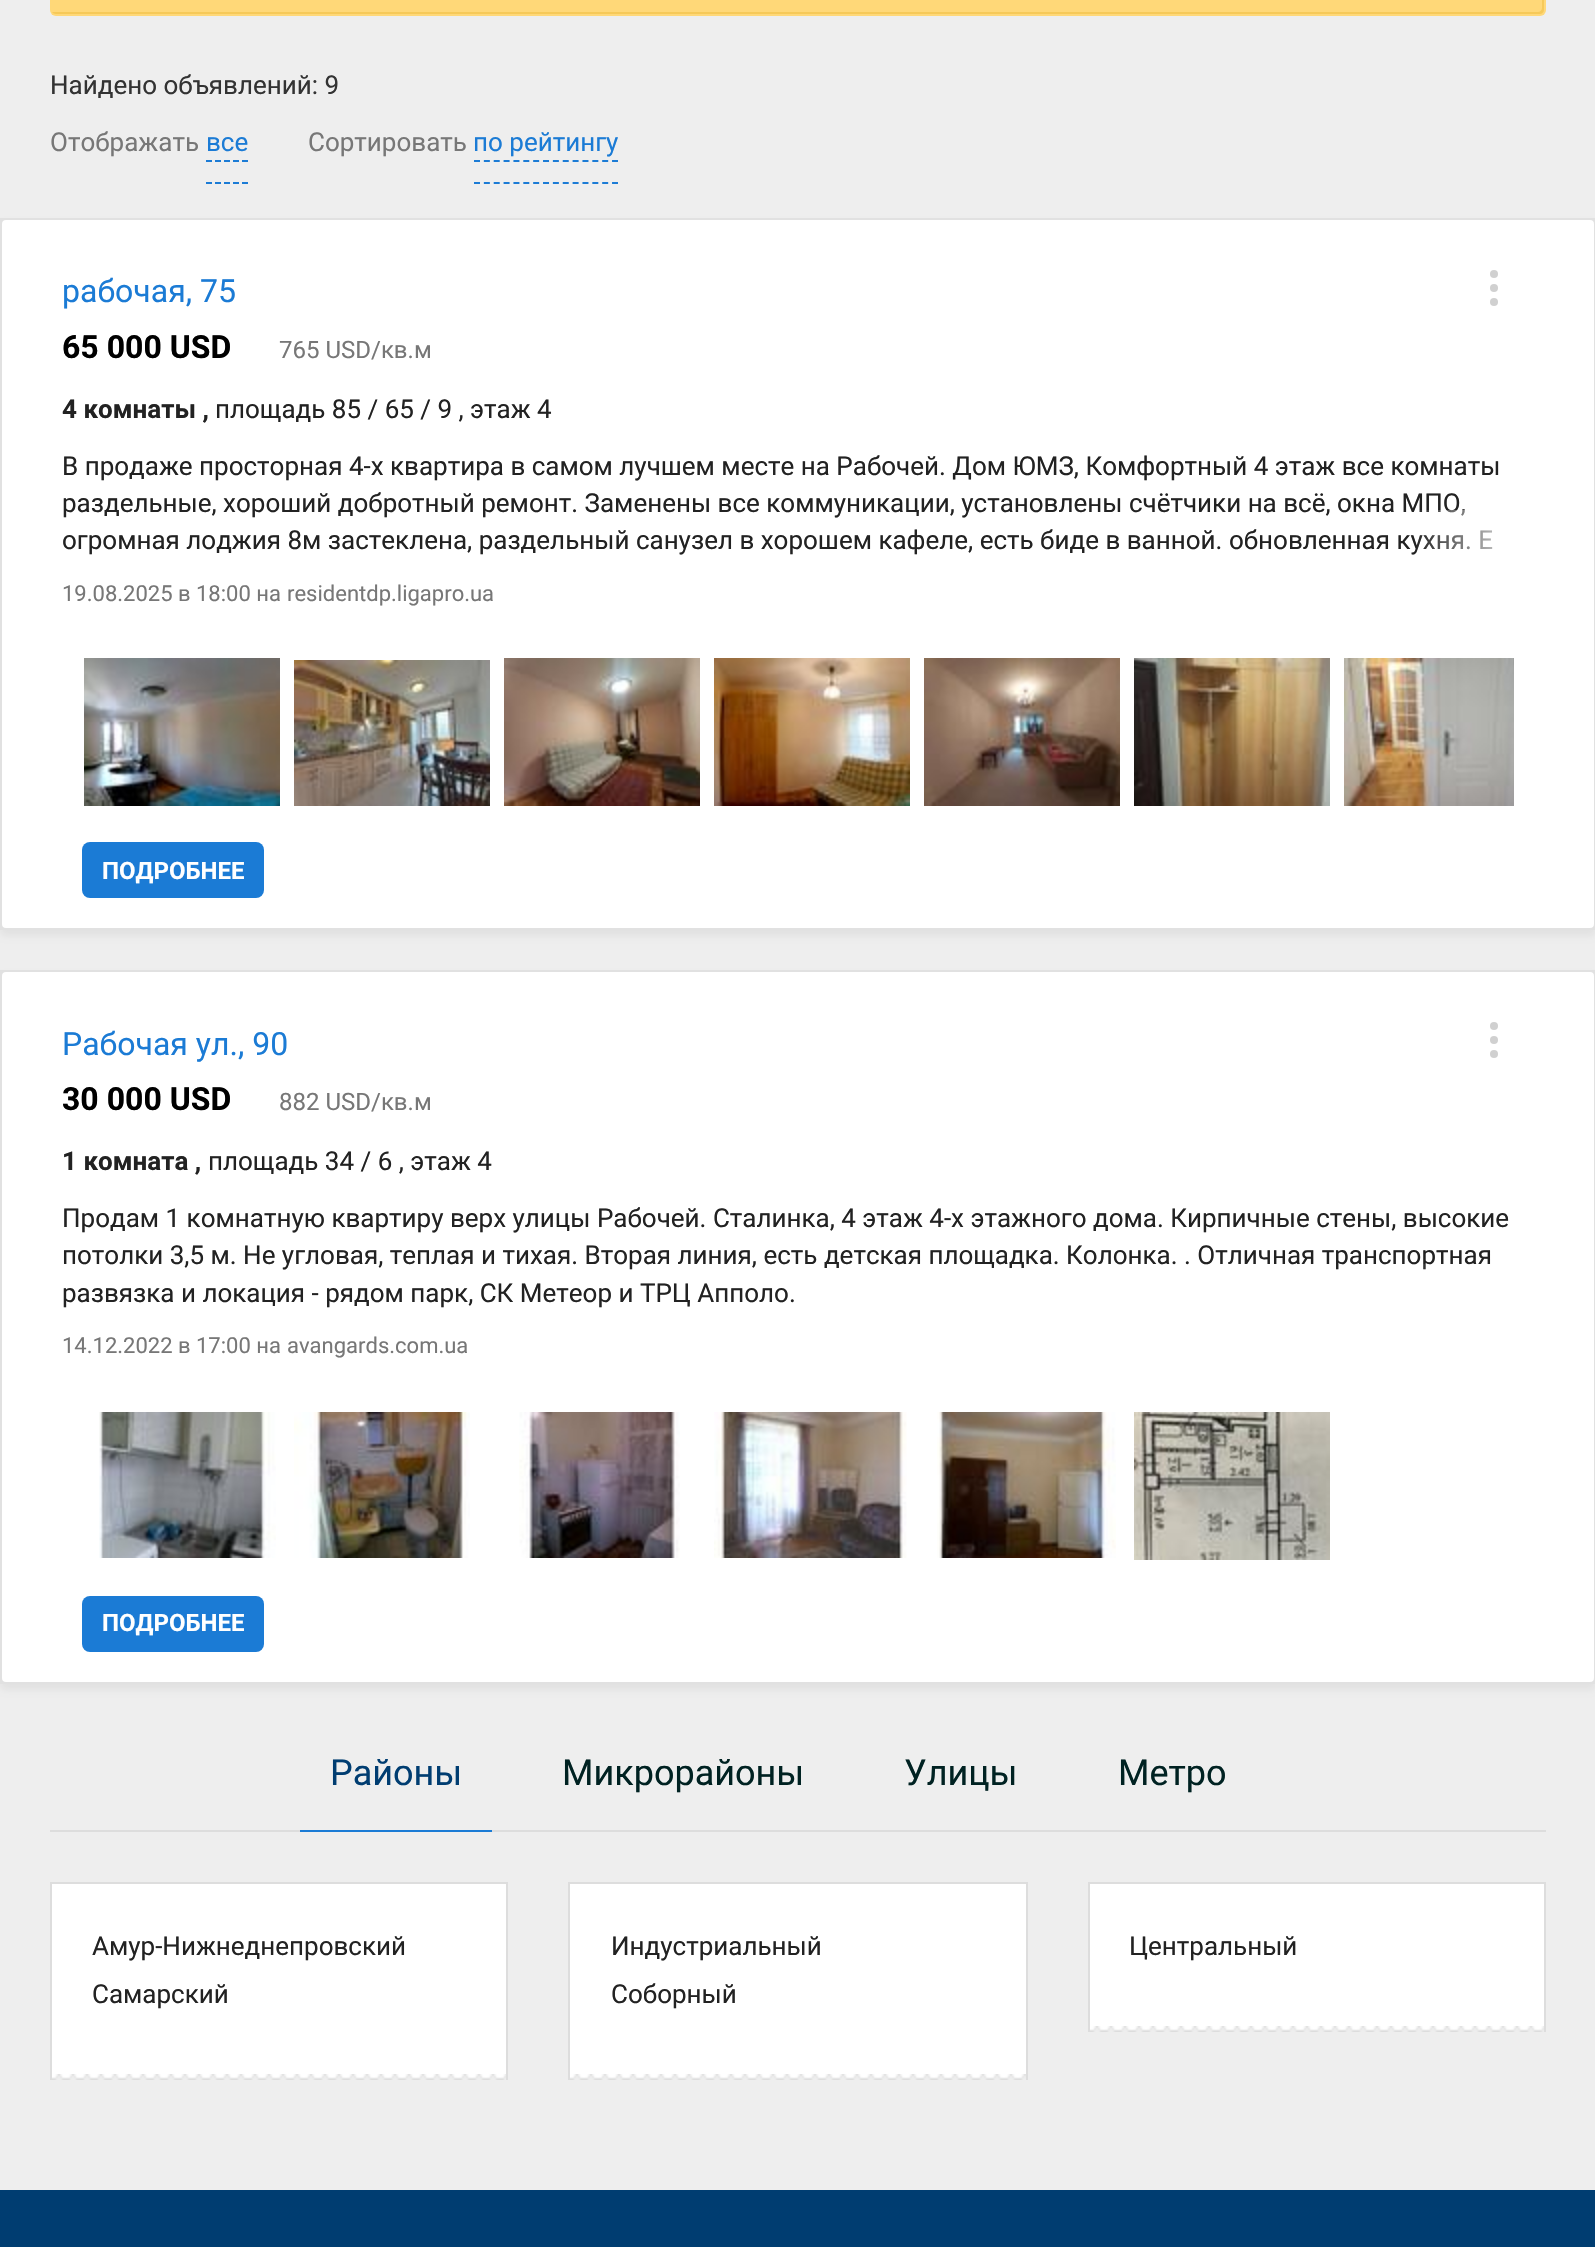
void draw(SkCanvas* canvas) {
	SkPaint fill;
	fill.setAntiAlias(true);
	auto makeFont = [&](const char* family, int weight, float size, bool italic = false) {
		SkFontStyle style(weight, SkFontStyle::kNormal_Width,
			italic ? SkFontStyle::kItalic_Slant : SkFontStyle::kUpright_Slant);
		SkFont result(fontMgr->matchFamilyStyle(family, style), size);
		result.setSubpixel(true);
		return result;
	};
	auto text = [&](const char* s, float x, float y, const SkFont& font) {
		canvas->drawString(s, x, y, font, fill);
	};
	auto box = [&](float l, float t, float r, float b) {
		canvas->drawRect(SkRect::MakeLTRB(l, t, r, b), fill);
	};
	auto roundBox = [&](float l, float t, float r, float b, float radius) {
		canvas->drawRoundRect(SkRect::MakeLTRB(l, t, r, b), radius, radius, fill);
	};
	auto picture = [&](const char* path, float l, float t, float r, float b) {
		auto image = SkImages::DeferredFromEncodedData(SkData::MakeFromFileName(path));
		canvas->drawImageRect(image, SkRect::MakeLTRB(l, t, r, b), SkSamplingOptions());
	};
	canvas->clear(0xFFEEEEEE);
	fill.setColor(0xFFFFD878);
	roundBox(50, -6, 1546, 16, 6);
	fill.setColor(0xFFF6C959);
	canvas->drawPath(SkPathBuilder().moveTo(52, 12).cubicTo(53, 13, 54, 14, 56, 14).lineTo(1540, 14).cubicTo(1542, 14, 1544, 12, 1544, 10).lineTo(1544, -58).cubicTo(1544, -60, 1543, -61, 1542, -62).lineTo(1542, -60).lineTo(1542, 8).cubicTo(1542, 10, 1540, 12, 1538, 12).lineTo(54, 12).close().detach(), fill);
	fill.setStyle(SkPaint::kStroke_Style);
	fill.setStrokeWidth(2);
	fill.setColor(0xFF1B7BD5);
	fill.setPathEffect(SkDashPathEffect::Make({{6, 3}}, 0));
	canvas->drawPath(SkPathBuilder().moveTo(206, 183).lineTo(248, 183).moveTo(206, 161).lineTo(248, 161).detach(), fill);
	fill.setPathEffect(nullptr);
	fill.setPathEffect(SkDashPathEffect::Make({{6, 3.86f}}, 0));
	canvas->drawPath(SkPathBuilder().moveTo(474, 183).lineTo(618, 183).detach(), fill);
	fill.setPathEffect(nullptr);
	fill.setPathEffect(SkDashPathEffect::Make({{6, 3.86f}}, 0));
	canvas->drawPath(SkPathBuilder().moveTo(474, 161).lineTo(618, 161).detach(), fill);
	fill.setPathEffect(nullptr);
	fill.setStyle(SkPaint::kFill_Style);
	fill.setColor(0x0D000000);
	fill.setMaskFilter(SkMaskFilter::MakeBlur(kNormal_SkBlurStyle, 3));
	canvas->drawRoundRect(SkRect::MakeLTRB(0, 224, 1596, 936), 6, 6, fill);
	fill.setMaskFilter(nullptr);
	fill.setColor(0xFFFFFFFF);
	box(2, 220, 1594, 928);
	fill.setStyle(SkPaint::kStroke_Style);
	fill.setColor(0xFFE1E1E1);
	canvas->drawRoundRect(SkRect::MakeLTRB(1, 219, 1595, 929), 5, 5, fill);
	canvas->drawRect(SkRect::MakeLTRB(1, 219, 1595, 929), fill);
	fill.setStyle(SkPaint::kFill_Style);
	fill.setColor(0xFFD0D0D0);
	canvas->drawCircle(1494, 274, 4, fill);
	canvas->drawCircle(1494, 288, 4, fill);
	canvas->drawCircle(1494, 302, 4, fill);
	picture("image0.png", 84, 658, 280, 806);
	picture("image1.png", 294, 660, 490, 806);
	picture("image2.png", 504, 658, 700, 806);
	picture("image3.png", 714, 658, 910, 806);
	picture("image4.png", 924, 658, 1120, 806);
	picture("image5.png", 1134, 658, 1330, 806);
	picture("image6.png", 1344, 658, 1514, 806);
	fill.setColor(0xFF1B7BD5);
	roundBox(82, 842, 264, 898, 8);
	fill.setColor(0x0D000000);
	fill.setMaskFilter(SkMaskFilter::MakeBlur(kNormal_SkBlurStyle, 3));
	canvas->drawRoundRect(SkRect::MakeLTRB(0, 976, 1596, 1690), 6, 6, fill);
	fill.setMaskFilter(nullptr);
	fill.setColor(0xFFFFFFFF);
	box(2, 972, 1594, 1682);
	fill.setStyle(SkPaint::kStroke_Style);
	fill.setColor(0xFFE1E1E1);
	canvas->drawRoundRect(SkRect::MakeLTRB(1, 971, 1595, 1683), 5, 5, fill);
	canvas->drawRect(SkRect::MakeLTRB(1, 971, 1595, 1683), fill);
	fill.setStyle(SkPaint::kFill_Style);
	fill.setColor(0xFFD0D0D0);
	canvas->drawCircle(1494, 1026, 4, fill);
	canvas->drawCircle(1494, 1040, 4, fill);
	canvas->drawCircle(1494, 1054, 4, fill);
	picture("image7.png", 99, 1412, 276, 1558);
	picture("image8.png", 294, 1412, 470, 1558);
	picture("image9.png", 519, 1412, 680, 1558);
	picture("image10.png", 714, 1412, 907, 1558);
	picture("image11.png", 937, 1412, 1116, 1558);
	picture("image12.png", 1134, 1412, 1330, 1560);
	fill.setColor(0xFF1B7BD5);
	roundBox(82, 1596, 264, 1652, 8);
	fill.setColor(0xFFDDDDDD);
	box(50, 1830, 1546, 1832);
	fill.setColor(0xFF1B7BD5);
	box(300, 1830, 492, 1832);
	fill.setColor(0xFFFFFFFF);
	box(52, 1884, 506, 2074);
	picture("image13.png", 52, 2074, 506, 2080);
	fill.setColor(0xFFDDDDDD);
	box(50, 1882, 508, 1884);
	box(506, 1882, 508, 2080);
	box(50, 1882, 52, 2080);
	fill.setColor(0xFFFFFFFF);
	box(570, 1884, 1026, 2074);
	picture("image14.png", 570, 2074, 1026, 2080);
	fill.setColor(0xFFDDDDDD);
	box(568, 1882, 1028, 1884);
	box(1026, 1882, 1028, 2080);
	box(568, 1882, 570, 2080);
	fill.setColor(0xFFFFFFFF);
	box(1090, 1884, 1544, 2026);
	picture("image13.png", 1090, 2026, 1544, 2032);
	fill.setColor(0xFFDDDDDD);
	box(1088, 1882, 1546, 1884);
	box(1544, 1882, 1546, 2032);
	box(1088, 1882, 1090, 2032);
	fill.setColor(0xFF003D71);
	box(0, 2190, 1595, 2247);
	auto font1 = makeFont("Roboto", 400, 26);
	fill.setColor(0xFF333333);
	text("Найдено объявлений: 9", 50, 94, font1);
	fill.setColor(0xFF777777);
	text("Отображать", 50, 151, font1);
	fill.setColor(0xFF1B7BD5);
	text("все", 206, 151, font1);
	fill.setColor(0xFF777777);
	text("Сортировать", 308, 151, font1);
	fill.setColor(0xFF1B7BD5);
	text("по рейтингу", 473, 151, font1);
	auto font2 = makeFont("Roboto", 400, 32);
	text("рабочая, 75", 62, 302, font2);
	auto font3 = makeFont("Roboto", 700, 32);
	fill.setColor(0xFF000000);
	text("65 000 USD", 62, 358, font3);
	auto font4 = makeFont("Roboto", 400, 24);
	fill.setColor(0xFF777777);
	text("765 USD/кв.м", 279, 358, font4);
	auto font5 = makeFont("Roboto", 700, 26);
	fill.setColor(0xFF222222);
	text("4 комнаты ,", 62, 418, font5);
	text("площадь 85 / 65 / 9 , этаж 4", 215, 418, font1);
	text("В продаже просторная 4-х квартира в самом лучшем месте на Рабочей. Дом ЮМЗ, Комфортный 4 этаж все комнаты", 62, 475, font1);
	text("раздельные, хороший добротный ремонт. Заменены все коммуникации, установлены счётчики на всё, окна МПО,", 62, 512, font1);
	text("огромная лоджия 8м застеклена, раздельный санузел в хорошем кафеле, есть биде в ванной. обновленная кухня. Е", 62, 549, font1);
	{
		const SkColor colors[] = {0xFFFFFFFF, 0x00FFFFFF};
		const float stops[] = {0, 1};
		const SkPoint ends[] = {{1534, 533}, {1414, 533}};
		fill.setShader(SkGradientShader::MakeLinear(ends, colors, stops, 2, SkTileMode::kClamp));
		fill.setAlpha(255);
	}
	box(1417, 510, 1493, 550);
	auto font6 = makeFont("Roboto", 400, 22);
	fill.setShader(nullptr);
	fill.setColor(0xFF777777);
	text("19.08.2025 в 18:00 на", 62, 601, font6);
	text("residentdp.ligapro.ua", 287, 601, font6);
	auto font7 = makeFont("Roboto", 700, 24);
	fill.setColor(0xFFFFFFFF);
	text("ПОДРОБНЕЕ", 102, 879, font7);
	fill.setColor(0xFF1B7BD5);
	text("Рабочая ул., 90", 62, 1055, font2);
	fill.setColor(0xFF000000);
	text("30 000 USD", 62, 1110, font3);
	fill.setColor(0xFF777777);
	text("882 USD/кв.м", 279, 1110, font4);
	fill.setColor(0xFF222222);
	text("1 комната ,", 62, 1170, font5);
	text("площадь 34 / 6 , этаж 4", 208, 1170, font1);
	text("Продам 1 комнатную квартиру верх улицы Рабочей. Сталинка, 4 этаж 4-х этажного дома. Кирпичные стены, высокие", 62, 1227, font1);
	text("потолки 3,5 м. Не угловая, теплая и тихая. Вторая линия, есть детская площадка. Колонка. . Отличная транспортная", 62, 1264, font1);
	{
		const SkColor colors[] = {0xFFFFFFFF, 0x00FFFFFF};
		const float stops[] = {0, 1};
		const SkPoint ends[] = {{1534, 1287}, {1414, 1287}};
		fill.setShader(SkGradientShader::MakeLinear(ends, colors, stops, 2, SkTileMode::kClamp));
		fill.setAlpha(255);
	}
	box(1423, 1264, 1471, 1270);
	fill.setShader(nullptr);
	fill.setColor(0xFF222222);
	text("развязка и локация - рядом парк, СК Метеор и ТРЦ Апполо.", 62, 1302, font1);
	fill.setColor(0xFF777777);
	text("14.12.2022 в 17:00 на", 62, 1353, font6);
	text("avangards.com.ua", 287, 1353, font6);
	fill.setColor(0xFFFFFFFF);
	text("ПОДРОБНЕЕ", 102, 1631, font7);
	auto font8 = makeFont("Roboto", 400, 36);
	fill.setColor(0xFF003D71);
	text("Районы", 330, 1785, font8);
	fill.setColor(0xFF002222);
	text("Микрорайоны", 562, 1785, font8);
	text("Улицы", 904, 1785, font8);
	text("Метро", 1118, 1785, font8);
	fill.setColor(0xFF222222);
	text("Амур-Нижнеднепровский", 92, 1955, font1);
	text("Самарский", 92, 2003, font1);
	text("Индустриальный", 611, 1955, font1);
	text("Соборный", 611, 2003, font1);
	text("Центральный", 1129, 1955, font1);
}
